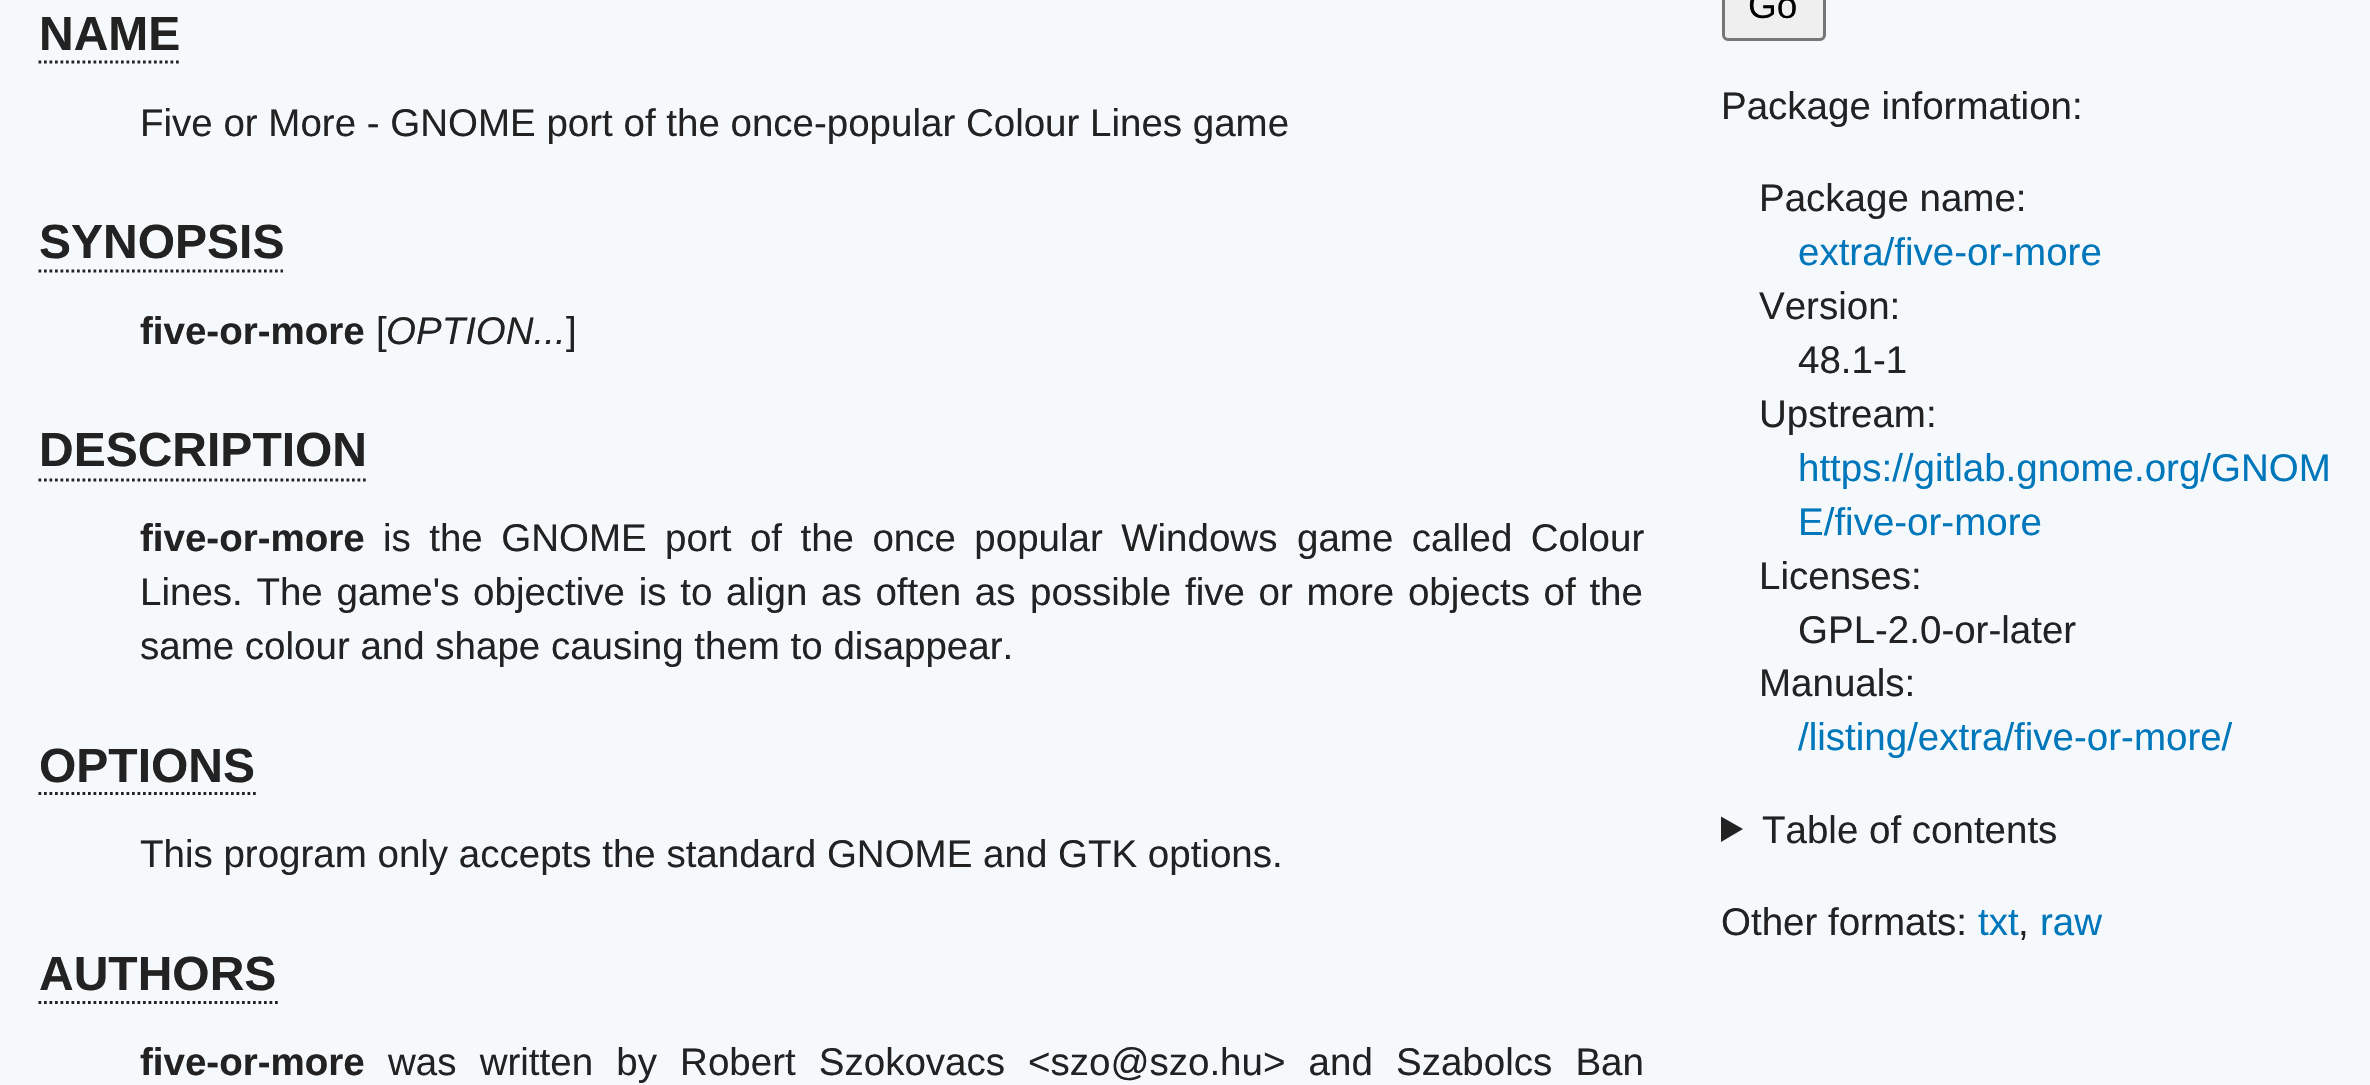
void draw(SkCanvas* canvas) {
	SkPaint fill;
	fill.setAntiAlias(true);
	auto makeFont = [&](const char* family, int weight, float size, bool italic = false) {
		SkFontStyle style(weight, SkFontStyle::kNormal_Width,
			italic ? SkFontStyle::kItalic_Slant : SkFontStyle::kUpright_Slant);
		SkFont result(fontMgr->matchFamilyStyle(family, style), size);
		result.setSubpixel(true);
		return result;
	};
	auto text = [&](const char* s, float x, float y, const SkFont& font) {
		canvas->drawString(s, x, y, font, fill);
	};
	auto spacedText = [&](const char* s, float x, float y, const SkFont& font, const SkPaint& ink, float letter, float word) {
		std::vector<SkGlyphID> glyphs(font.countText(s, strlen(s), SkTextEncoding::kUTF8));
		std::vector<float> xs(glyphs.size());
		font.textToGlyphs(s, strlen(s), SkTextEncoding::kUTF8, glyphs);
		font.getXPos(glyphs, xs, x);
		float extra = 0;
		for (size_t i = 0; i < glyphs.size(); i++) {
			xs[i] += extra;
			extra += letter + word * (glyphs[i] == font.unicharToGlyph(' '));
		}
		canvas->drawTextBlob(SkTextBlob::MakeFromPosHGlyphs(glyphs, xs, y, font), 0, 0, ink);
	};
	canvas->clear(0xFFF6F9FC);
	fill.setStyle(SkPaint::kStroke_Style);
	fill.setStrokeWidth(2.8f);
	fill.setColor(0xFF222222);
	fill.setPathEffect(SkDashPathEffect::Make({{2.75f, 2.75f}}, 0));
	canvas->drawPath(SkPathBuilder().moveTo(38.5f, 62).lineTo(181.5f, 62).detach(), fill);
	fill.setPathEffect(nullptr);
	fill.setPathEffect(SkDashPathEffect::Make({{2.75f, 2.75f}}, 0));
	canvas->drawPath(SkPathBuilder().moveTo(38.5f, 271).lineTo(283, 271).detach(), fill);
	fill.setPathEffect(nullptr);
	fill.setPathEffect(SkDashPathEffect::Make({{2.75f, 2.75f}}, 0));
	canvas->drawPath(SkPathBuilder().moveTo(38.5f, 480).lineTo(368.5f, 480).detach(), fill);
	fill.setPathEffect(nullptr);
	fill.setPathEffect(SkDashPathEffect::Make({{2.75f, 2.75f}}, 0));
	canvas->drawPath(SkPathBuilder().moveTo(38.5f, 793.5f).lineTo(256, 793.5f).detach(), fill);
	fill.setPathEffect(nullptr);
	fill.setPathEffect(SkDashPathEffect::Make({{2.75f, 2.75f}}, 0));
	canvas->drawPath(SkPathBuilder().moveTo(38.5f, 1002.5f).lineTo(278, 1002.5f).detach(), fill);
	fill.setPathEffect(nullptr);
	fill.setStyle(SkPaint::kFill_Style);
	fill.setColor(0xFFEFEFEF);
	canvas->drawRoundRect(SkRect::MakeLTRB(1723.5f, -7.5f, 1824.5f, 39.5f), 4.5f, 4.5f, fill);
	fill.setStyle(SkPaint::kStroke_Style);
	fill.setStrokeWidth(3);
	fill.setColor(0xFF767676);
	canvas->drawRoundRect(SkRect::MakeLTRB(1723.5f, -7.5f, 1824.5f, 39.5f), 4.5f, 4.5f, fill);
	fill.setStyle(SkPaint::kFill_Style);
	fill.setColor(0xFF222222);
	canvas->drawPath(SkPathBuilder().moveTo(1721, 816.5f).lineTo(1743, 829).lineTo(1721, 842).close().detach(), fill);
	auto font1 = makeFont("Liberation Sans", 700, 48);
	text("NAME", 39, 50, font1);
	auto font2 = makeFont("Liberation Sans", 400, 38.5f);
	text("Five or More - GNOME port of the once-popular Colour Lines game", 140, 136, font2);
	text("SYNOPSIS", 39, 258, font1);
	auto font3 = makeFont("Liberation Sans", 700, 38.5f);
	text("five-or-more", 140, 344, font3);
	text("[", 376, 344, font2);
	auto font4 = makeFont("Liberation Sans", 400, 38.5f, true);
	text("OPTION...", 386, 344, font4);
	text("]", 566, 344, font2);
	text("DESCRIPTION", 39, 466, font1);
	text("five-or-more", 140, 551, font3);
	spacedText("is the GNOME port of the once popular Windows", 383, 551, font2, fill, 0, 7.75f);
	spacedText("game called Colour", 1297, 551, font2, fill, 0, 7.75f);
	spacedText("Lines. The game's objective is to align as often as", 140, 605, font2, fill, 0, 3);
	spacedText("possible five or more objects of the", 1030, 605, font2, fill, 0, 3);
	text("same colour and shape causing them to disappear.", 140, 659, font2);
	text("OPTIONS", 39, 782, font1);
	text("This program only accepts the standard GNOME and GTK options.", 140, 867, font2);
	text("AUTHORS", 39, 990, font1);
	text("five-or-more", 140, 1075, font3);
	spacedText("was written by Robert Szokovacs", 388, 1075, font2, fill, 0, 12.5f);
	spacedText("<szo@szo.hu> and Szabolcs Ban", 1028, 1075, font2, fill, 0, 12.5f);
	auto font5 = makeFont("Liberation Sans", 400, 37);
	fill.setColor(0xFF000000);
	text("Go", 1748, 18, font5);
	fill.setColor(0xFF222222);
	text("Package information:", 1721, 119, font2);
	text("Package name:", 1759, 211, font2);
	fill.setColor(0xFF0077BB);
	text("extra/five-or-more", 1798, 265, font2);
	fill.setColor(0xFF222222);
	text("Version:", 1759, 319, font2);
	text("48.1-1", 1798, 373, font2);
	text("Upstream:", 1759, 427, font2);
	fill.setColor(0xFF0077BB);
	text("https://gitlab.gnome.org/GNOM", 1798, 481, font2);
	text("E/five-or-more", 1798, 535, font2);
	fill.setColor(0xFF222222);
	text("Licenses:", 1759, 589, font2);
	text("GPL-2.0-or-later", 1798, 643, font2);
	text("Manuals:", 1759, 696, font2);
	fill.setColor(0xFF0077BB);
	text("/listing/extra/five-or-more/", 1798, 750, font2);
	fill.setColor(0xFF222222);
	text("Table of contents", 1762, 843, font2);
	text("Other formats:", 1721, 935, font2);
	fill.setColor(0xFF0077BB);
	text("txt", 1978, 935, font2);
	fill.setColor(0xFF222222);
	text(",", 2018, 935, font2);
	fill.setColor(0xFF0077BB);
	text("raw", 2040, 935, font2);
}
